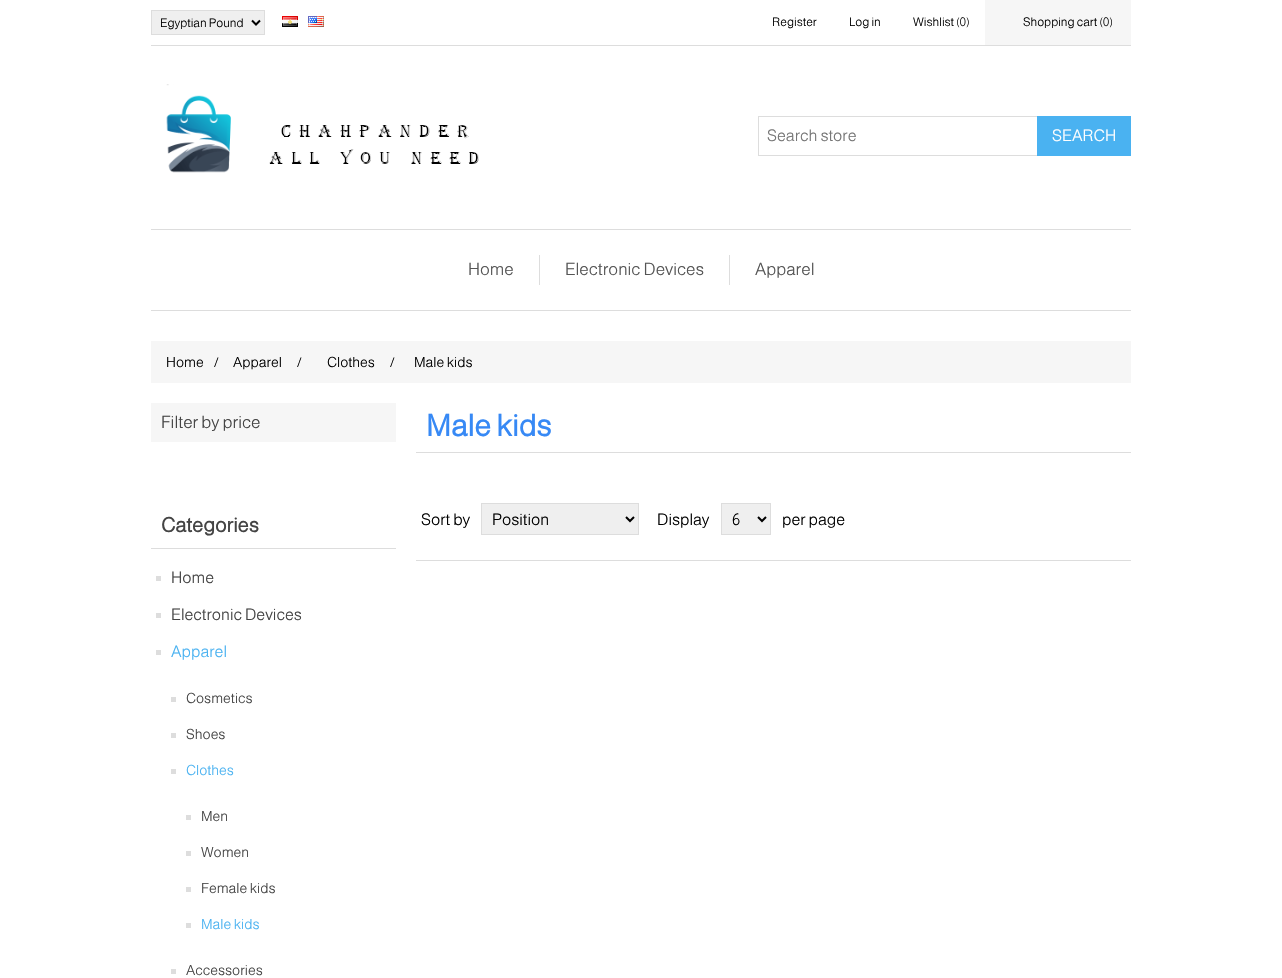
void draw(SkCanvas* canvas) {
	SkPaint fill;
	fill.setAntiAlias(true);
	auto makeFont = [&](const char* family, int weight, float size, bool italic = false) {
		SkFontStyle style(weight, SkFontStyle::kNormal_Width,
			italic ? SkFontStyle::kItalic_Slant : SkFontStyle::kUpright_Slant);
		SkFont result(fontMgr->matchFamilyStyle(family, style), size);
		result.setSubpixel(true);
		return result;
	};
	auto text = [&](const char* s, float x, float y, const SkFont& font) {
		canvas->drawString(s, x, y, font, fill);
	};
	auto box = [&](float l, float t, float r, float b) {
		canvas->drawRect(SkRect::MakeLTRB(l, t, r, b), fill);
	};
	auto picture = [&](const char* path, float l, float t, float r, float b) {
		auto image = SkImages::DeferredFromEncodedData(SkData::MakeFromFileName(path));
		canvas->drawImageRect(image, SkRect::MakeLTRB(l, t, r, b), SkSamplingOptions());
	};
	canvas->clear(0xFFFFFFFF);
	fill.setColor(0xFFDDDDDD);
	box(151, 45, 1131, 46);
	fill.setColor(0xFFEFEFEF);
	canvas->drawRect(SkRect::MakeLTRB(151.5f, 10.5f, 264.5f, 34.5f), fill);
	fill.setStyle(SkPaint::kStroke_Style);
	fill.setStrokeWidth(1);
	fill.setColor(0xFFDDDDDD);
	canvas->drawRect(SkRect::MakeLTRB(151.5f, 10.5f, 264.5f, 34.5f), fill);
	fill.setStrokeWidth(2);
	fill.setColor(0xFF000000);
	canvas->drawPath(SkPathBuilder().moveTo(252, 20.5f).lineTo(256, 24.5f).lineTo(260, 20.5f).detach(), fill);
	picture("image0.png", 282, 16, 298, 27);
	picture("image1.png", 308, 16, 324, 27);
	fill.setStyle(SkPaint::kFill_Style);
	fill.setColor(0xFFF6F6F6);
	box(985, 0, 1131, 45);
	picture("image2.png", 166, 84, 479, 173);
	fill.setStyle(SkPaint::kStroke_Style);
	fill.setStrokeWidth(1);
	fill.setColor(0xFFDDDDDD);
	canvas->drawRect(SkRect::MakeLTRB(758.5f, 116.5f, 1037.5f, 155.5f), fill);
	fill.setStyle(SkPaint::kFill_Style);
	fill.setColor(0xFF4AB2F1);
	box(1037, 116, 1131, 156);
	fill.setColor(0xFFDDDDDD);
	box(151, 229, 1131, 230);
	box(151, 310, 1131, 311);
	box(539, 255, 540, 285);
	box(729, 255, 730, 285);
	fill.setColor(0xFFF6F6F6);
	box(151, 341, 1131, 383);
	box(151, 403, 396, 442);
	fill.setColor(0xFFDDDDDD);
	box(151, 548, 396, 549);
	box(156, 576, 161, 581);
	box(156, 613, 161, 618);
	box(156, 650, 161, 655);
	box(171, 697, 176, 702);
	box(171, 733, 176, 738);
	box(171, 769, 176, 774);
	box(186, 815, 191, 820);
	box(186, 851, 191, 856);
	box(186, 887, 191, 892);
	box(186, 923, 191, 928);
	box(171, 969, 176, 974);
	box(416, 452, 1131, 453);
	box(416, 560, 1131, 561);
	fill.setColor(0xFFEFEFEF);
	canvas->drawRect(SkRect::MakeLTRB(481.5f, 503.5f, 638.5f, 534.5f), fill);
	fill.setStyle(SkPaint::kStroke_Style);
	fill.setColor(0xFFDDDDDD);
	canvas->drawRect(SkRect::MakeLTRB(481.5f, 503.5f, 638.5f, 534.5f), fill);
	fill.setStrokeWidth(2);
	fill.setColor(0xFF000000);
	canvas->drawPath(SkPathBuilder().moveTo(626, 517).lineTo(630, 521).lineTo(634, 517).detach(), fill);
	fill.setStyle(SkPaint::kFill_Style);
	fill.setColor(0xFFEFEFEF);
	canvas->drawRect(SkRect::MakeLTRB(721.5f, 503.5f, 770.5f, 534.5f), fill);
	fill.setStyle(SkPaint::kStroke_Style);
	fill.setStrokeWidth(1);
	fill.setColor(0xFFDDDDDD);
	canvas->drawRect(SkRect::MakeLTRB(721.5f, 503.5f, 770.5f, 534.5f), fill);
	fill.setStrokeWidth(2);
	fill.setColor(0xFF000000);
	canvas->drawPath(SkPathBuilder().moveTo(758, 517).lineTo(762, 521).lineTo(766, 517).detach(), fill);
	auto font1 = makeFont("Almarai", 300, 12);
	fill.setStyle(SkPaint::kFill_Style);
	text("Egyptian Pound", 160, 27, font1);
	text("Register", 772, 26, font1);
	text("Log in", 849, 26, font1);
	text("Wishlist (0)", 913, 26, font1);
	text("Shopping cart (0)", 1023, 26, font1);
	auto font2 = makeFont("Almarai", 300, 16);
	fill.setColor(0xFF757575);
	text("Search store", 767, 141, font2);
	fill.setColor(0xFFFFFFFF);
	text("SEARCH", 1052, 141, font2);
	auto font3 = makeFont("Almarai", 300, 17);
	fill.setColor(0xFF555555);
	text("Home", 468, 275, font3);
	text("Electronic Devices", 565, 275, font3);
	text("Apparel", 755, 275, font3);
	auto font4 = makeFont("Almarai", 300, 14);
	fill.setColor(0xFF000000);
	text("Home", 166, 367, font4);
	text("/", 214, 367, font4);
	text("Apparel", 233, 367, font4);
	text("/", 297, 367, font4);
	text("Clothes", 327, 367, font4);
	text("/", 390, 367, font4);
	text("Male kids", 414, 367, font4);
	fill.setColor(0xFF444444);
	text("Filter by price", 161, 428, font3);
	auto font5 = makeFont("Almarai", 700, 20);
	text("Categories", 161, 532, font5);
	text("Home", 171, 583, font2);
	text("Electronic Devices", 171, 620, font2);
	fill.setColor(0xFF4AB2F1);
	text("Apparel", 171, 657, font2);
	fill.setColor(0xFF444444);
	text("Cosmetics", 186, 703, font4);
	text("Shoes", 186, 739, font4);
	fill.setColor(0xFF4AB2F1);
	text("Clothes", 186, 775, font4);
	fill.setColor(0xFF444444);
	text("Men", 201, 821, font4);
	text("Women", 201, 857, font4);
	text("Female kids", 201, 893, font4);
	fill.setColor(0xFF4AB2F1);
	text("Male kids", 201, 929, font4);
	fill.setColor(0xFF444444);
	text("Accessories", 186, 975, font4);
	auto font6 = makeFont("Almarai", 700, 30);
	fill.setColor(0xFF3789F5);
	text("Male kids", 426, 436, font6);
	fill.setColor(0xFF000000);
	text("Sort by", 421, 525, font2);
	text("Position", 492, 525, font2);
	text("Display", 657, 525, font2);
	text("6", 732, 525, font2);
	text("per page", 782, 525, font2);
}
